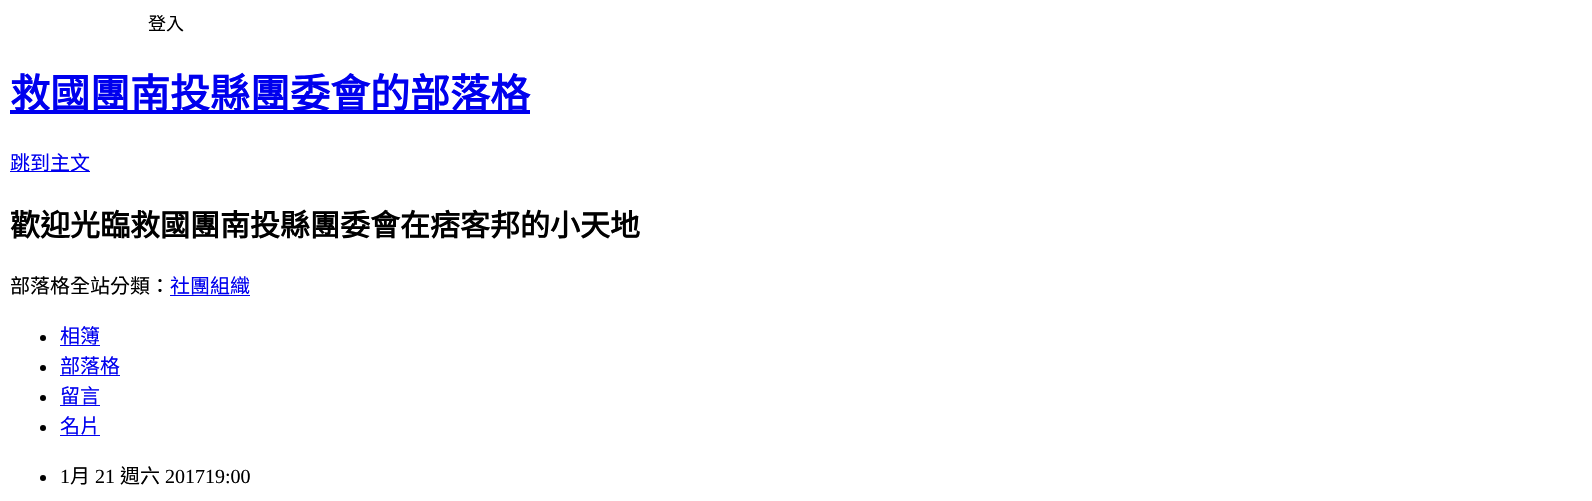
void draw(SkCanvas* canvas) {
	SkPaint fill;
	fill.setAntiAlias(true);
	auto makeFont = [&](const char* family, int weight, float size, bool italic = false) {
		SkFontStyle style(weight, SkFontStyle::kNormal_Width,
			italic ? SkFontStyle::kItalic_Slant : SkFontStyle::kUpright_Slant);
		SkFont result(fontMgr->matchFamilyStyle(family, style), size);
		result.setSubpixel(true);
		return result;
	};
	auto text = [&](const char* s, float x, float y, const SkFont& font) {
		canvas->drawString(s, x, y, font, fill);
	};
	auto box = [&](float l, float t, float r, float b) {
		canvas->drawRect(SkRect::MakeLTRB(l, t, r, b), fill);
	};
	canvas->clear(0xFFFFFFFF);
	fill.setColor(0xFF0000EE);
	box(10, 110, 530, 114);
	box(10, 171, 90, 172);
	box(170, 295, 250, 296);
	fill.setColor(0xFF000000);
	canvas->drawCircle(43, 338, 3, fill);
	fill.setColor(0xFF0000EE);
	box(60, 345, 100, 346);
	fill.setColor(0xFF000000);
	canvas->drawCircle(43, 368, 3, fill);
	fill.setColor(0xFF0000EE);
	box(60, 375, 120, 376);
	fill.setColor(0xFF000000);
	canvas->drawCircle(43, 398, 3, fill);
	fill.setColor(0xFF0000EE);
	box(60, 405, 100, 406);
	fill.setColor(0xFF000000);
	canvas->drawCircle(43, 428, 3, fill);
	fill.setColor(0xFF0000EE);
	box(60, 435, 100, 436);
	fill.setColor(0xFF000000);
	canvas->drawCircle(43, 478, 3, fill);
	auto font1 = makeFont("Noto Sans CJK TC", 400, 18);
	text("登入", 148, 30, font1);
	auto font2 = makeFont("Noto Sans CJK TC", 700, 40);
	fill.setColor(0xFF0000EE);
	text("救國團南投縣團委會的部落格", 10, 108, font2);
	auto font3 = makeFont("Noto Sans CJK TC", 400, 20);
	text("跳到主文", 10, 170, font3);
	auto font4 = makeFont("Noto Sans CJK TC", 700, 30);
	fill.setColor(0xFF000000);
	text("歡迎光臨救國團南投縣團委會在痞客邦的小天地", 10, 236, font4);
	text("部落格全站分類：", 10, 293, font3);
	fill.setColor(0xFF0000EE);
	text("社團組織", 170, 293, font3);
	text("相簿", 60, 343, font3);
	text("部落格", 60, 373, font3);
	text("留言", 60, 403, font3);
	text("名片", 60, 433, font3);
	auto font5 = makeFont("Liberation Serif", 400, 20);
	fill.setColor(0xFF000000);
	text("1", 60, 483, font5);
	text("月", 70, 483, font3);
	text("21", 95, 483, font5);
	text("週六", 120, 483, font3);
	text("201719:00", 165, 483, font5);
}
